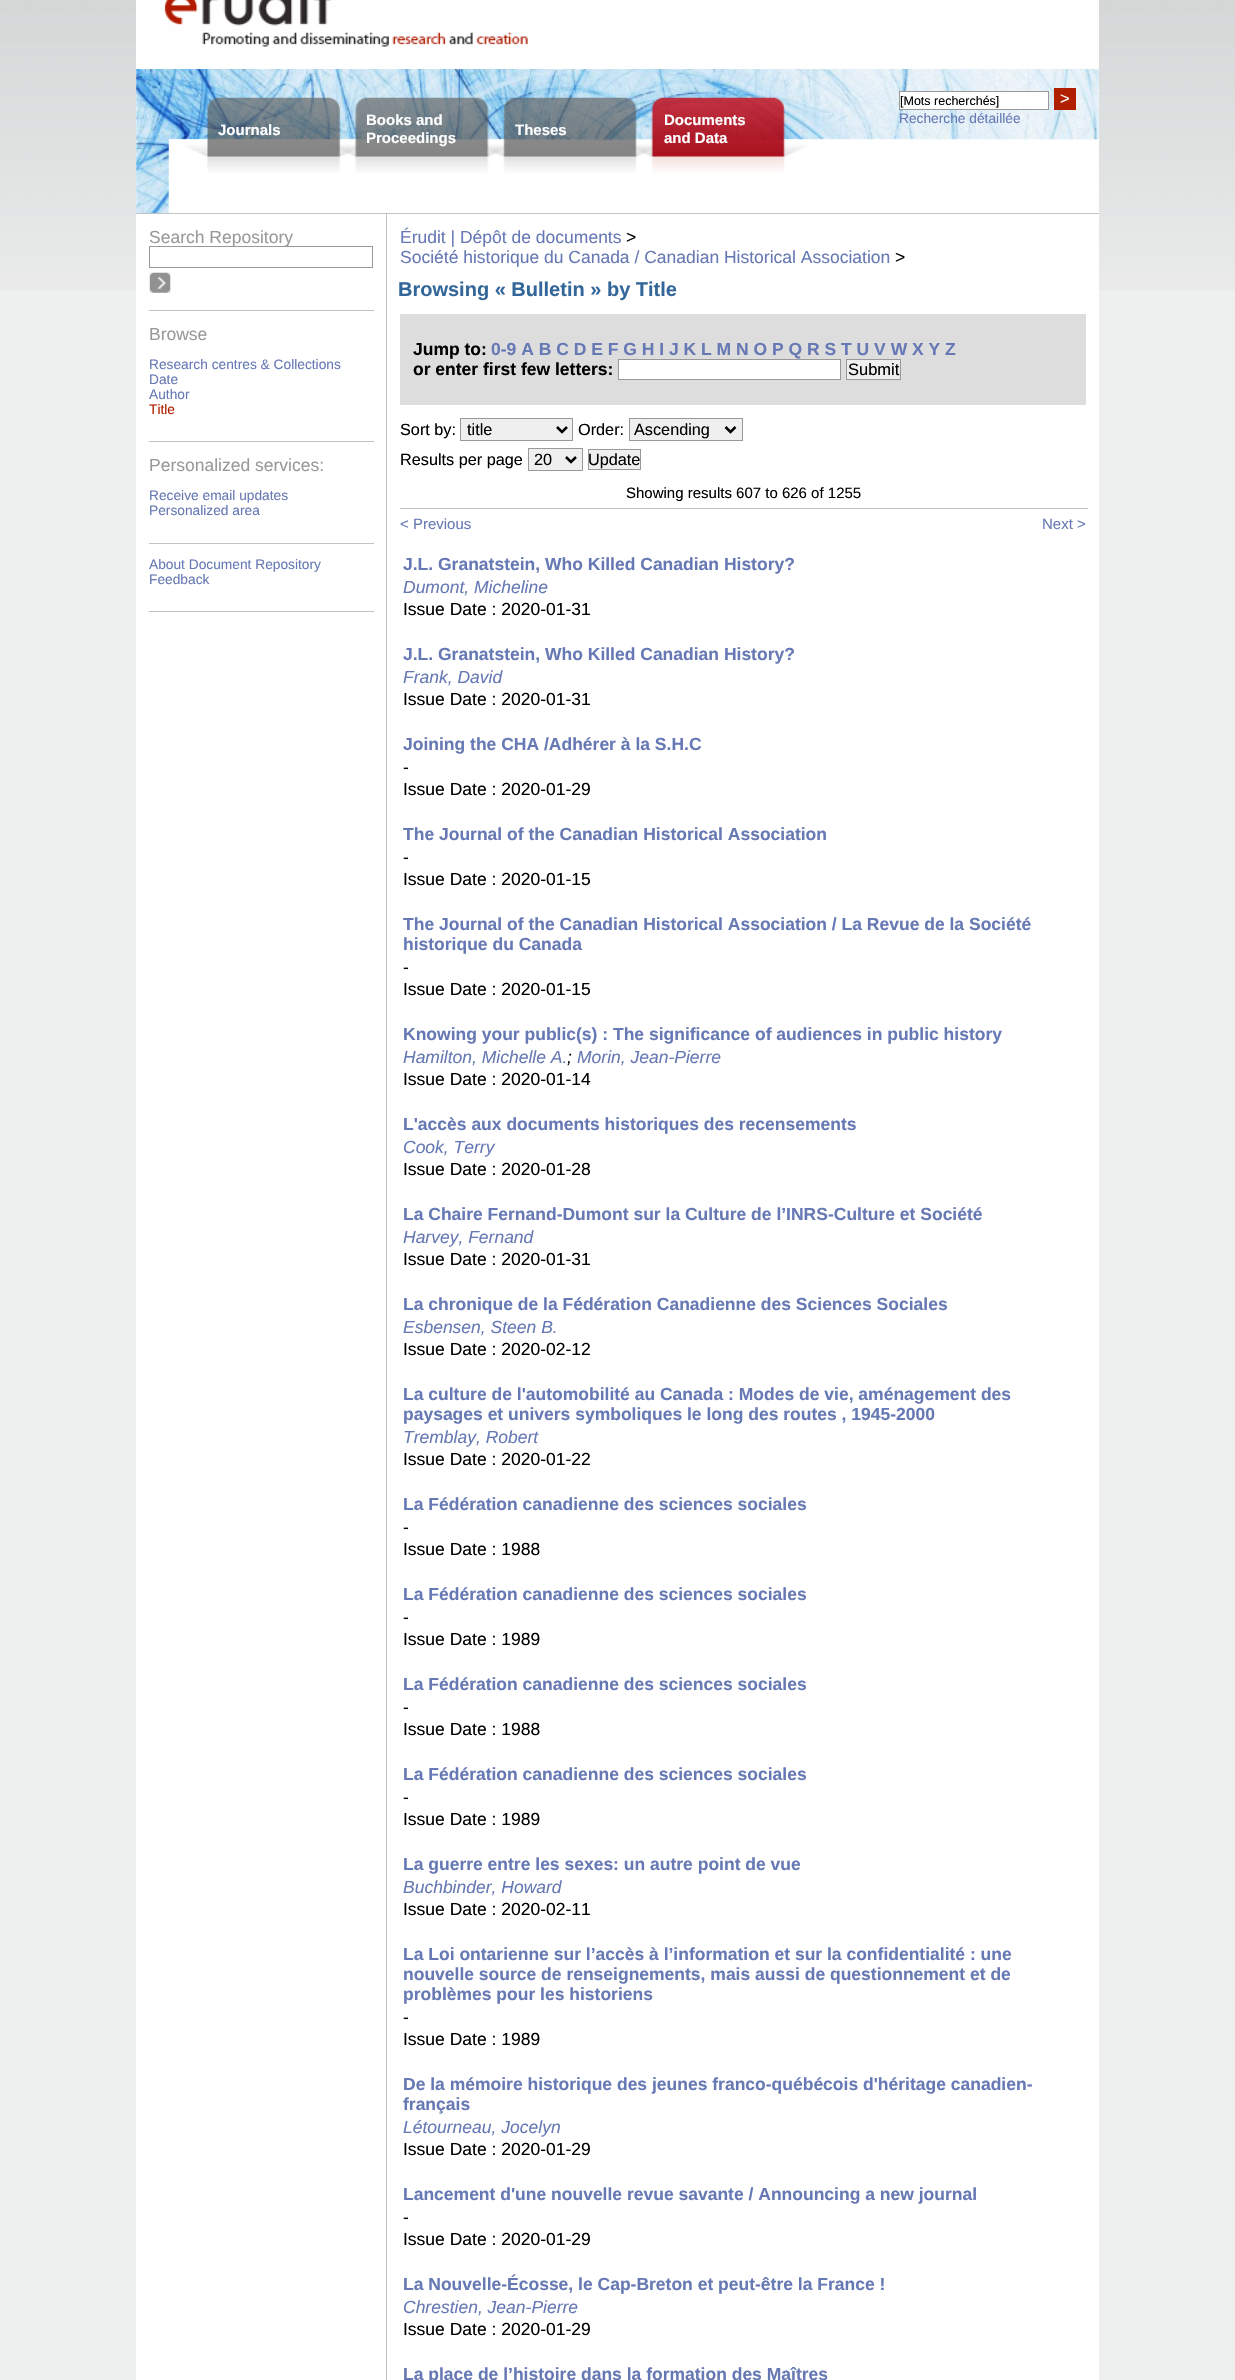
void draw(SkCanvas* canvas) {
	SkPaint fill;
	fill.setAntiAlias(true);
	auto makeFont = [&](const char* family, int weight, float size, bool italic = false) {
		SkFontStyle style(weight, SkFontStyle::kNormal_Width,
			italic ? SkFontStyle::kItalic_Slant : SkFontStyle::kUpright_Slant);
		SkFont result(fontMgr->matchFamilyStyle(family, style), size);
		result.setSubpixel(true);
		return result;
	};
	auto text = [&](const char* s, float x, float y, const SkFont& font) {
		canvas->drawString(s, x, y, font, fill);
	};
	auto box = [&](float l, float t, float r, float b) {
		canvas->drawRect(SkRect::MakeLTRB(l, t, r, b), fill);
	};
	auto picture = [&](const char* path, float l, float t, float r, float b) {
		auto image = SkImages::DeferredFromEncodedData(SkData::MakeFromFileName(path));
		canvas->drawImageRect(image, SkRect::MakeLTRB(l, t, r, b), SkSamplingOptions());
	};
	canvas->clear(0xFFEEEFEF);
	picture("image0.png", 0, 0, 1235, 290);
	fill.setColor(0xFFFFFFFF);
	box(136, 0, 1099, 213);
	picture("image1.png", 164, 0, 528, 47);
	picture("image2.png", 136, 69, 1099, 213);
	fill.setColor(0xFFC3C3C3);
	box(136, 213, 1099, 214);
	fill.setColor(0xFFFFFFFF);
	canvas->drawRect(SkRect::MakeLTRB(899.5f, 91.5f, 1048.5f, 109.5f), fill);
	fill.setStyle(SkPaint::kStroke_Style);
	fill.setStrokeWidth(1);
	fill.setColor(0xFF999999);
	canvas->drawRect(SkRect::MakeLTRB(899.5f, 91.5f, 1048.5f, 109.5f), fill);
	fill.setStyle(SkPaint::kFill_Style);
	fill.setColor(0xFFB02000);
	box(1054, 88, 1076, 110);
	fill.setColor(0xFFFFFFFF);
	box(136, 214, 1099, 2380);
	fill.setStyle(SkPaint::kStroke_Style);
	fill.setColor(0xFF999999);
	canvas->drawRect(SkRect::MakeLTRB(149.5f, 246.5f, 372.5f, 267.5f), fill);
	picture("image3.png", 149, 272, 171, 293);
	fill.setStyle(SkPaint::kFill_Style);
	fill.setColor(0xFFC3C3C3);
	box(149, 310, 374, 311);
	box(149, 441, 374, 442);
	box(149, 543, 374, 544);
	box(149, 611, 374, 612);
	box(386, 214, 387, 2380);
	fill.setColor(0xFFDDDDDD);
	box(400, 314, 1086, 405);
	fill.setColor(0xFFFFFFFF);
	canvas->drawRect(SkRect::MakeLTRB(618.5f, 359.5f, 840.5f, 379.5f), fill);
	fill.setStyle(SkPaint::kStroke_Style);
	fill.setColor(0xFF999999);
	canvas->drawRect(SkRect::MakeLTRB(618.5f, 359.5f, 840.5f, 379.5f), fill);
	fill.setStyle(SkPaint::kFill_Style);
	fill.setColor(0xFFEFEFEF);
	canvas->drawRect(SkRect::MakeLTRB(846.5f, 359.5f, 900.5f, 379.5f), fill);
	fill.setStyle(SkPaint::kStroke_Style);
	fill.setColor(0xFF999999);
	canvas->drawRect(SkRect::MakeLTRB(846.5f, 359.5f, 900.5f, 379.5f), fill);
	fill.setStyle(SkPaint::kFill_Style);
	fill.setColor(0xFFEFEFEF);
	canvas->drawRect(SkRect::MakeLTRB(460.5f, 418.5f, 572.5f, 440.5f), fill);
	fill.setStyle(SkPaint::kStroke_Style);
	fill.setColor(0xFF999999);
	canvas->drawRect(SkRect::MakeLTRB(460.5f, 418.5f, 572.5f, 440.5f), fill);
	fill.setStrokeWidth(2.5f);
	fill.setColor(0xFF000000);
	canvas->drawPath(SkPathBuilder().moveTo(557, 427).lineTo(562, 432).lineTo(567, 427).detach(), fill);
	fill.setStyle(SkPaint::kFill_Style);
	fill.setColor(0xFFEFEFEF);
	canvas->drawRect(SkRect::MakeLTRB(629.5f, 418.5f, 742.5f, 440.5f), fill);
	fill.setStyle(SkPaint::kStroke_Style);
	fill.setStrokeWidth(1);
	fill.setColor(0xFF999999);
	canvas->drawRect(SkRect::MakeLTRB(629.5f, 418.5f, 742.5f, 440.5f), fill);
	fill.setStrokeWidth(2.5f);
	fill.setColor(0xFF000000);
	canvas->drawPath(SkPathBuilder().moveTo(725.5f, 427).lineTo(730.5f, 432).lineTo(735.5f, 427).detach(), fill);
	fill.setStyle(SkPaint::kFill_Style);
	fill.setColor(0xFFEFEFEF);
	canvas->drawRect(SkRect::MakeLTRB(528.5f, 448.5f, 582.5f, 470.5f), fill);
	fill.setStyle(SkPaint::kStroke_Style);
	fill.setStrokeWidth(1);
	fill.setColor(0xFF999999);
	canvas->drawRect(SkRect::MakeLTRB(528.5f, 448.5f, 582.5f, 470.5f), fill);
	fill.setStrokeWidth(2.5f);
	fill.setColor(0xFF000000);
	canvas->drawPath(SkPathBuilder().moveTo(566, 457).lineTo(571, 462).lineTo(576, 457).detach(), fill);
	fill.setStyle(SkPaint::kFill_Style);
	fill.setColor(0xFFEFEFEF);
	canvas->drawRect(SkRect::MakeLTRB(588.5f, 449.5f, 640.5f, 469.5f), fill);
	fill.setStyle(SkPaint::kStroke_Style);
	fill.setStrokeWidth(1);
	fill.setColor(0xFF999999);
	canvas->drawRect(SkRect::MakeLTRB(588.5f, 449.5f, 640.5f, 469.5f), fill);
	fill.setStyle(SkPaint::kFill_Style);
	fill.setColor(0xFFC3C3C3);
	box(400, 508, 1088, 509);
	auto font1 = makeFont("Liberation Sans", 400, 12.5f);
	fill.setColor(0xFF000000);
	text("[Mots recherchés]", 900, 105, font1);
	auto font2 = makeFont("Liberation Sans", 400, 16.5f);
	fill.setColor(0xFFFFFFFF);
	text(">", 1060, 104, font2);
	auto font3 = makeFont("Liberation Sans", 400, 13.75f);
	fill.setColor(0xFF6779B4);
	text("Recherche détaillée", 899, 123, font3);
	auto font4 = makeFont("Liberation Sans", 700, 15);
	fill.setColor(0xFFFFFFFF);
	text("Journals", 218, 135, font4);
	text("Books and", 366, 125, font4);
	text("Proceedings", 366, 143, font4);
	text("Theses", 515, 135, font4);
	text("Documents", 664, 125, font4);
	text("and Data", 664, 143, font4);
	auto font5 = makeFont("Liberation Sans", 400, 17.5f);
	fill.setColor(0xFF999999);
	text("Search Repository", 149, 243, font5);
	text("Browse", 149, 340, font5);
	fill.setColor(0xFF6779B4);
	text("Research centres & Collections", 149, 369, font3);
	text("Date", 149, 384, font3);
	text("Author", 149, 399, font3);
	fill.setColor(0xFFB02000);
	text("Title", 149, 414, font3);
	fill.setColor(0xFF999999);
	text("Personalized services:", 149, 471, font5);
	fill.setColor(0xFF6779B4);
	text("Receive email updates", 149, 500, font3);
	text("Personalized area", 149, 515, font3);
	text("About Document Repository", 149, 569, font3);
	text("Feedback", 149, 584, font3);
	text("Érudit | Dépôt de documents", 400, 243, font5);
	fill.setColor(0xFF000000);
	text(">", 626, 243, font5);
	fill.setColor(0xFF6779B4);
	text("Société historique du Canada / Canadian Historical Association", 400, 263, font5);
	fill.setColor(0xFF000000);
	text(">", 895, 263, font5);
	auto font6 = makeFont("Liberation Sans", 700, 20);
	fill.setColor(0xFF336699);
	text("Browsing « Bulletin » by Title", 398, 296, font6);
	auto font7 = makeFont("Liberation Sans", 700, 17.5f);
	fill.setColor(0xFF000000);
	text("Jump to:", 413, 355, font7);
	fill.setColor(0xFF6779B4);
	text("0-9 A B C D E F G H I J K L M N O P Q R S T U V W X Y Z", 491, 355, font7);
	fill.setColor(0xFF000000);
	text("or enter first few letters:", 413, 375, font7);
	text("Submit", 848, 375, font2);
	auto font8 = makeFont("Liberation Sans", 400, 16.25f);
	text("Sort by:", 400, 435, font8);
	text("title", 467, 435, font8);
	text("Order:", 578, 435, font8);
	text("Ascending", 634, 435, font8);
	text("Results per page", 400, 465, font8);
	text("20", 534, 465, font8);
	text("Update", 588, 465, font8);
	auto font9 = makeFont("Liberation Sans", 400, 15);
	text("Showing results 607 to 626 of 1255", 626, 498, font9);
	fill.setColor(0xFF6779B4);
	text("< Previous", 400, 529, font9);
	text("Next >", 1042, 529, font9);
	text("J.L. Granatstein, Who Killed Canadian History?", 403, 570, font7);
	auto font10 = makeFont("Liberation Sans", 400, 17.5f, true);
	text("Dumont, Micheline", 403, 593, font10);
	fill.setColor(0xFF000000);
	text("Issue Date : 2020-01-31", 403, 615, font5);
	fill.setColor(0xFF6779B4);
	text("J.L. Granatstein, Who Killed Canadian History?", 403, 660, font7);
	text("Frank, David", 403, 683, font10);
	fill.setColor(0xFF000000);
	text("Issue Date : 2020-01-31", 403, 705, font5);
	fill.setColor(0xFF6779B4);
	text("Joining the CHA /Adhérer à la S.H.C", 403, 750, font7);
	fill.setColor(0xFF000000);
	text("-", 403, 773, font5);
	text("Issue Date : 2020-01-29", 403, 795, font5);
	fill.setColor(0xFF6779B4);
	text("The Journal of the Canadian Historical Association", 403, 840, font7);
	fill.setColor(0xFF000000);
	text("-", 403, 863, font5);
	text("Issue Date : 2020-01-15", 403, 885, font5);
	fill.setColor(0xFF6779B4);
	text("The Journal of the Canadian Historical Association / La Revue de la Société", 403, 930, font7);
	text("historique du Canada", 403, 950, font7);
	fill.setColor(0xFF000000);
	text("-", 403, 973, font5);
	text("Issue Date : 2020-01-15", 403, 995, font5);
	fill.setColor(0xFF6779B4);
	text("Knowing your public(s) : The significance of audiences in public history", 403, 1040, font7);
	text("Hamilton, Michelle A.", 403, 1063, font10);
	fill.setColor(0xFF000000);
	text(";", 567, 1063, font10);
	fill.setColor(0xFF6779B4);
	text("Morin, Jean-Pierre", 577, 1063, font10);
	fill.setColor(0xFF000000);
	text("Issue Date : 2020-01-14", 403, 1085, font5);
	fill.setColor(0xFF6779B4);
	text("L'accès aux documents historiques des recensements", 403, 1130, font7);
	text("Cook, Terry", 403, 1153, font10);
	fill.setColor(0xFF000000);
	text("Issue Date : 2020-01-28", 403, 1175, font5);
	fill.setColor(0xFF6779B4);
	text("La Chaire Fernand-Dumont sur la Culture de l’INRS-Culture et Société", 403, 1220, font7);
	text("Harvey, Fernand", 403, 1243, font10);
	fill.setColor(0xFF000000);
	text("Issue Date : 2020-01-31", 403, 1265, font5);
	fill.setColor(0xFF6779B4);
	text("La chronique de la Fédération Canadienne des Sciences Sociales", 403, 1310, font7);
	text("Esbensen, Steen B.", 403, 1333, font10);
	fill.setColor(0xFF000000);
	text("Issue Date : 2020-02-12", 403, 1355, font5);
	fill.setColor(0xFF6779B4);
	text("La culture de l'automobilité au Canada : Modes de vie, aménagement des", 403, 1400, font7);
	text("paysages et univers symboliques le long des routes , 1945-2000", 403, 1420, font7);
	text("Tremblay, Robert", 403, 1443, font10);
	fill.setColor(0xFF000000);
	text("Issue Date : 2020-01-22", 403, 1465, font5);
	fill.setColor(0xFF6779B4);
	text("La Fédération canadienne des sciences sociales", 403, 1510, font7);
	fill.setColor(0xFF000000);
	text("-", 403, 1533, font5);
	text("Issue Date : 1988", 403, 1555, font5);
	fill.setColor(0xFF6779B4);
	text("La Fédération canadienne des sciences sociales", 403, 1600, font7);
	fill.setColor(0xFF000000);
	text("-", 403, 1623, font5);
	text("Issue Date : 1989", 403, 1645, font5);
	fill.setColor(0xFF6779B4);
	text("La Fédération canadienne des sciences sociales", 403, 1690, font7);
	fill.setColor(0xFF000000);
	text("-", 403, 1713, font5);
	text("Issue Date : 1988", 403, 1735, font5);
	fill.setColor(0xFF6779B4);
	text("La Fédération canadienne des sciences sociales", 403, 1780, font7);
	fill.setColor(0xFF000000);
	text("-", 403, 1803, font5);
	text("Issue Date : 1989", 403, 1825, font5);
	fill.setColor(0xFF6779B4);
	text("La guerre entre les sexes: un autre point de vue", 403, 1870, font7);
	text("Buchbinder, Howard", 403, 1893, font10);
	fill.setColor(0xFF000000);
	text("Issue Date : 2020-02-11", 403, 1915, font5);
	fill.setColor(0xFF6779B4);
	text("La Loi ontarienne sur l’accès à l’information et sur la confidentialité : une", 403, 1960, font7);
	text("nouvelle source de renseignements, mais aussi de questionnement et de", 403, 1980, font7);
	text("problèmes pour les historiens", 403, 2000, font7);
	fill.setColor(0xFF000000);
	text("-", 403, 2023, font5);
	text("Issue Date : 1989", 403, 2045, font5);
	fill.setColor(0xFF6779B4);
	text("De la mémoire historique des jeunes franco-québécois d'héritage canadien-", 403, 2090, font7);
	text("français", 403, 2110, font7);
	text("Létourneau, Jocelyn", 403, 2133, font10);
	fill.setColor(0xFF000000);
	text("Issue Date : 2020-01-29", 403, 2155, font5);
	fill.setColor(0xFF6779B4);
	text("Lancement d'une nouvelle revue savante / Announcing a new journal", 403, 2200, font7);
	fill.setColor(0xFF000000);
	text("-", 403, 2223, font5);
	text("Issue Date : 2020-01-29", 403, 2245, font5);
	fill.setColor(0xFF6779B4);
	text("La Nouvelle-Écosse, le Cap-Breton et peut-être la France !", 403, 2290, font7);
	text("Chrestien, Jean-Pierre", 403, 2313, font10);
	fill.setColor(0xFF000000);
	text("Issue Date : 2020-01-29", 403, 2335, font5);
	fill.setColor(0xFF6779B4);
	text("La place de l’histoire dans la formation des Maîtres", 403, 2380, font7);
}
